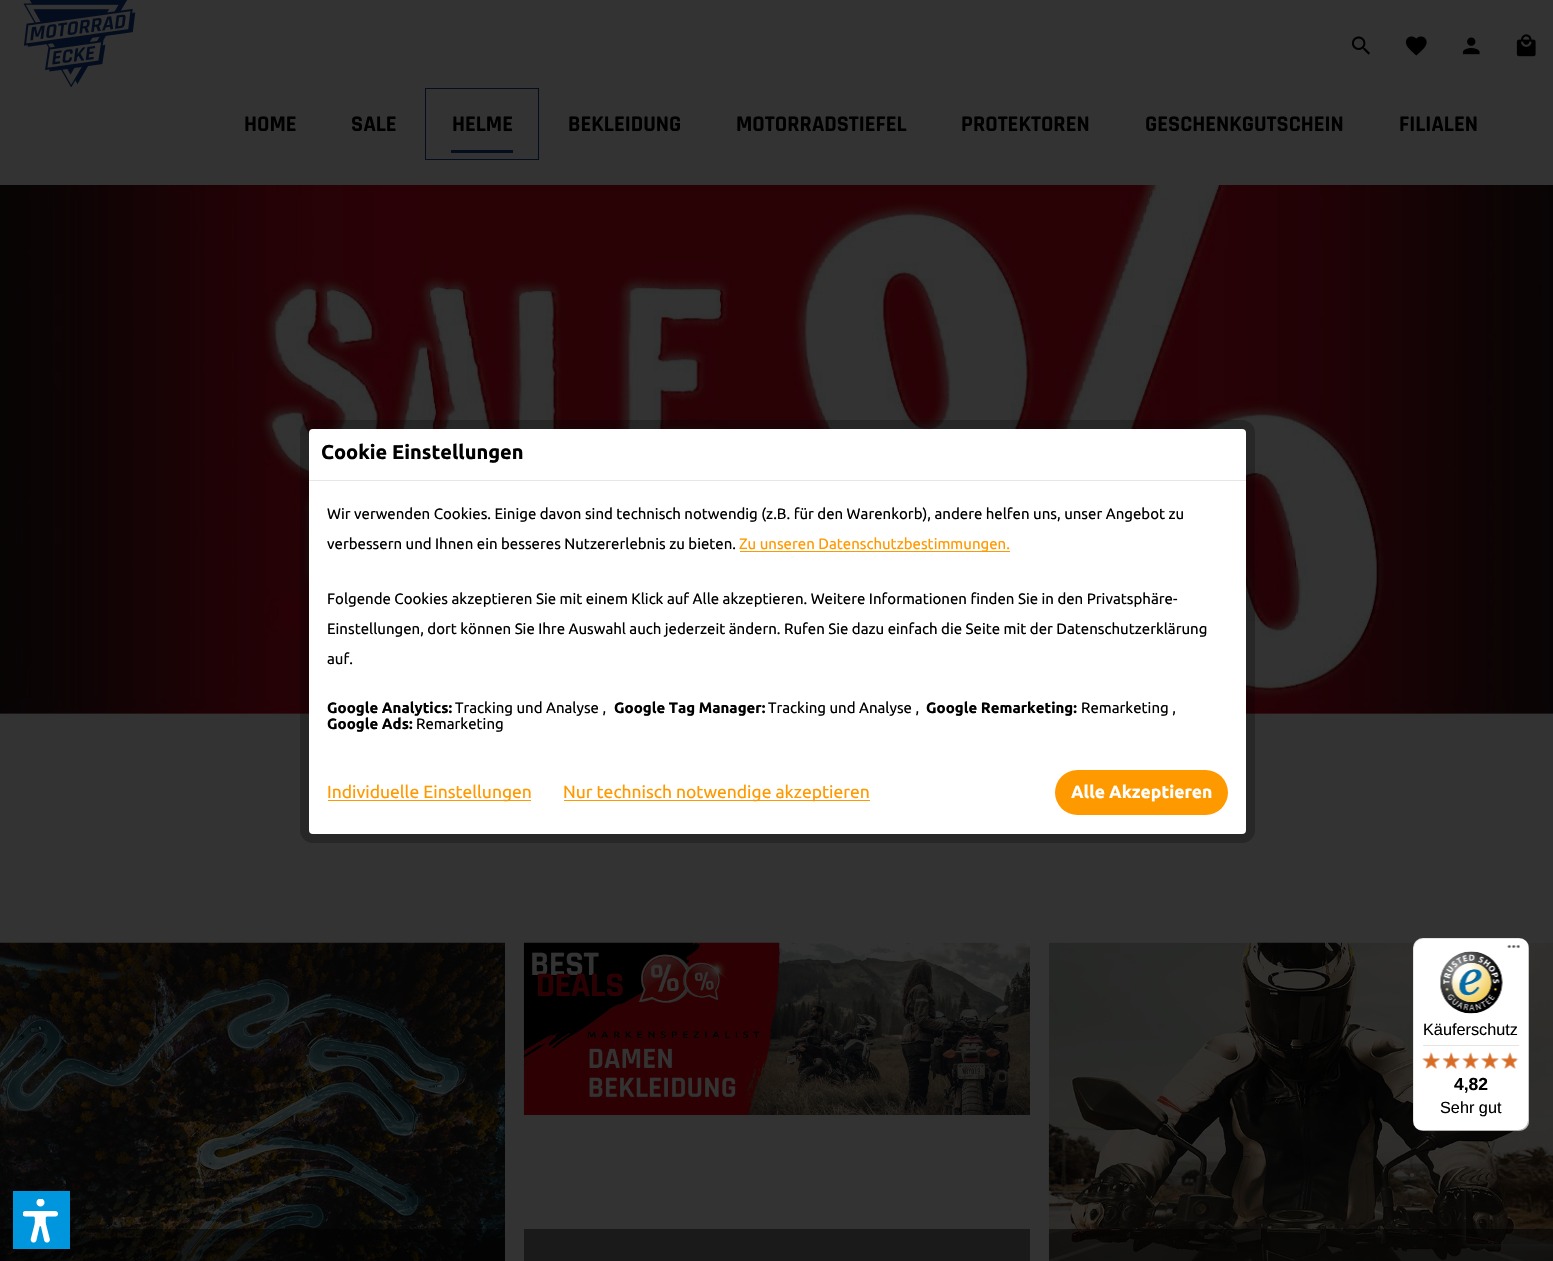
void draw(SkCanvas* canvas) {
	SkPaint fill;
	fill.setAntiAlias(true);
	auto makeFont = [&](const char* family, int weight, float size, bool italic = false) {
		SkFontStyle style(weight, SkFontStyle::kNormal_Width,
			italic ? SkFontStyle::kItalic_Slant : SkFontStyle::kUpright_Slant);
		SkFont result(fontMgr->matchFamilyStyle(family, style), size);
		result.setSubpixel(true);
		return result;
	};
	auto text = [&](const char* s, float x, float y, const SkFont& font) {
		canvas->drawString(s, x, y, font, fill);
	};
	auto box = [&](float l, float t, float r, float b) {
		canvas->drawRect(SkRect::MakeLTRB(l, t, r, b), fill);
	};
	auto roundBox = [&](float l, float t, float r, float b, float radius) {
		canvas->drawRoundRect(SkRect::MakeLTRB(l, t, r, b), radius, radius, fill);
	};
	auto picture = [&](const char* path, float l, float t, float r, float b) {
		auto image = SkImages::DeferredFromEncodedData(SkData::MakeFromFileName(path));
		canvas->drawImageRect(image, SkRect::MakeLTRB(l, t, r, b), SkSamplingOptions());
	};
	canvas->clear(0xFF333333);
	picture("image0.png", 23, 0, 136, 87);
	picture("image1.png", 1351, 36, 1370, 55);
	picture("image2.png", 1405, 36, 1427, 56);
	picture("image3.png", 1462, 37, 1480, 55);
	picture("image4.png", 1516, 34, 1536, 57);
	fill.setStyle(SkPaint::kStroke_Style);
	fill.setStrokeWidth(1);
	fill.setColor(0xFF040D1E);
	canvas->drawRect(SkRect::MakeLTRB(425.5f, 88.5f, 538.5f, 159.5f), fill);
	fill.setStyle(SkPaint::kFill_Style);
	box(451, 150, 513, 153);
	picture("image5.png", 0, 185, 1553, 714);
	picture("image6.png", 0, 942, 505, 1261);
	fill.setColor(0x80000000);
	box(0, 1229, 505, 1261);
	picture("image7.png", 523, 942, 1030, 1115);
	fill.setColor(0xFF1A1A1A);
	box(524, 1229, 1030, 1261);
	picture("image8.png", 1048, 942, 1553, 1261);
	fill.setColor(0x80000000);
	box(1049, 1229, 1553, 1261);
	fill.setStyle(SkPaint::kStroke_Style);
	fill.setStrokeWidth(9);
	fill.setColor(0x40000000);
	canvas->drawRoundRect(SkRect::MakeLTRB(304.5f, 424.5f, 1250.5f, 838.5f), 8.5f, 8.5f, fill);
	fill.setStyle(SkPaint::kFill_Style);
	fill.setColor(0xFFFFFFFF);
	roundBox(309, 429, 1246, 834, 4);
	fill.setColor(0xFFE8E7E8);
	box(309, 480, 1246, 481);
	fill.setColor(0xFFFF9900);
	box(740, 551, 1010, 552);
	box(328, 800, 531, 801);
	box(564, 800, 870, 801);
	roundBox(1055, 770, 1228, 815, 22.5f);
	fill.setColor(0xFFFFFFFF);
	roundBox(1413, 938, 1529, 1131, 10);
	fill.setColor(0x1A000000);
	canvas->drawPath(SkPathBuilder().moveTo(1424, 939).lineTo(1520, 939).cubicTo(1522, 939, 1524, 939, 1525, 940).cubicTo(1524, 939, 1521, 938, 1519, 938).lineTo(1423, 938).cubicTo(1417, 938, 1413, 942, 1413, 948).lineTo(1413, 1121).cubicTo(1413, 1123, 1414, 1126, 1415, 1127).cubicTo(1414, 1126, 1414, 1124, 1414, 1122).lineTo(1414, 949).cubicTo(1414, 943, 1418, 939, 1424, 939).close().detach(), fill);
	fill.setColor(0x33000000);
	canvas->drawPath(SkPathBuilder().moveTo(1417, 1129).cubicTo(1419, 1130, 1421, 1131, 1423, 1131).lineTo(1519, 1131).cubicTo(1525, 1131, 1529, 1127, 1529, 1121).lineTo(1529, 948).cubicTo(1529, 946, 1528, 944, 1527, 942).cubicTo(1528, 943, 1528, 945, 1528, 946).lineTo(1528, 1120).cubicTo(1528, 1126, 1523, 1130, 1518, 1130).lineTo(1421, 1130).close().detach(), fill);
	fill.setColor(0x33323232);
	canvas->drawPath(SkPathBuilder().moveTo(1417, 1129).cubicTo(1418, 1130, 1421, 1131, 1423, 1131).lineTo(1519, 1131).cubicTo(1525, 1131, 1529, 1127, 1529, 1121).lineTo(1529, 948).cubicTo(1529, 946, 1528, 943, 1527, 942).cubicTo(1528, 943, 1528, 945, 1528, 947).lineTo(1528, 1120).cubicTo(1528, 1126, 1524, 1130, 1518, 1130).lineTo(1422, 1130).cubicTo(1420, 1130, 1418, 1130, 1417, 1129).close().detach(), fill);
	fill.setColor(0x4DFFFFFF);
	canvas->drawPath(SkPathBuilder().moveTo(1518, 1131).lineTo(1519, 1131).cubicTo(1525, 1131, 1529, 1127, 1529, 1121).lineTo(1529, 948).cubicTo(1529, 946, 1528, 943, 1527, 942).cubicTo(1528, 943, 1528, 945, 1528, 947).lineTo(1528, 1121).cubicTo(1528, 1126, 1524, 1131, 1518, 1131).close().detach(), fill);
	picture("image9.png", 1507, 945, 1520, 948);
	picture("image10.png", 1440, 951, 1503, 1014);
	fill.setColor(0xFFE5E5E5);
	box(1423, 1045, 1519, 1046);
	picture("image11.png", 1422, 1053, 1440, 1068);
	picture("image12.png", 1443, 1052, 1460, 1069);
	picture("image13.png", 1462, 1053, 1479, 1068);
	picture("image14.png", 1481, 1052, 1499, 1069);
	picture("image15.png", 1501, 1053, 1519, 1068);
	picture("image16.png", 1422, 1052, 1440, 1069);
	picture("image17.png", 1442, 1052, 1460, 1069);
	picture("image18.png", 1462, 1052, 1479, 1069);
	picture("image19.png", 1481, 1052, 1499, 1069);
	picture("image20.png", 1501, 1052, 1517, 1069);
	fill.setColor(0xFF0096DE);
	box(13, 1191, 70, 1249);
	picture("image21.png", 23, 1199, 58, 1243);
	canvas->save();
	canvas->clipPath(SkPathBuilder(SkPathFillType::kEvenOdd).moveTo(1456, 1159).lineTo(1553, 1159).lineTo(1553, 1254).lineTo(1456, 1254).close().moveTo(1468.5f, 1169).lineTo(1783.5f, 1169).cubicTo(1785, 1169, 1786, 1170, 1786, 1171.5f).lineTo(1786, 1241.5f).cubicTo(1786, 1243, 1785, 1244, 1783.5f, 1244).lineTo(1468.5f, 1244).cubicTo(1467, 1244, 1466, 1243, 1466, 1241.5f).lineTo(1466, 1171.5f).cubicTo(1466, 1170, 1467, 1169, 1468.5f, 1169).close().detach(), true);
	fill.setColor(0xFF1A1A1A);
	fill.setMaskFilter(SkMaskFilter::MakeBlur(kNormal_SkBlurStyle, 3));
	canvas->drawRoundRect(SkRect::MakeLTRB(1466, 1169, 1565, 1244), 2.5f, 2.5f, fill);
	fill.setMaskFilter(nullptr);
	canvas->restore();
	auto font1 = makeFont("Rajdhani", 700, 22.5f);
	fill.setColor(0xFF000000);
	text("HOME", 244, 131, font1);
	text("SALE", 351, 131, font1);
	text("HELME", 452, 131, font1);
	text("BEKLEIDUNG", 568, 131, font1);
	text("MOTORRADSTIEFEL", 736, 131, font1);
	text("PROTEKTOREN", 961, 131, font1);
	text("GESCHENKGUTSCHEIN", 1145, 131, font1);
	text("FILIALEN", 1399, 131, font1);
	auto font2 = makeFont("Ubuntu", 700, 20);
	text("Cookie Einstellungen", 321, 459, font2);
	auto font3 = makeFont("Ubuntu", 400, 15);
	text("Wir verwenden Cookies. Einige davon sind technisch notwendig (z.B. für den Warenkorb), andere helfen uns, unser Angebot zu", 327, 519, font3);
	text("verbessern und Ihnen ein besseres Nutzererlebnis zu bieten.", 327, 549, font3);
	fill.setColor(0xFFFF9900);
	text("Zu unseren Datenschutzbestimmungen.", 739, 549, font3);
	fill.setColor(0xFF000000);
	text("Folgende Cookies akzeptieren Sie mit einem Klick auf Alle akzeptieren. Weitere Informationen finden Sie in den Privatsphäre-", 327, 604, font3);
	text("Einstellungen, dort können Sie Ihre Auswahl auch jederzeit ändern. Rufen Sie dazu einfach die Seite mit der Datenschutzerklärung", 327, 634, font3);
	text("auf.", 327, 664, font3);
	auto font4 = makeFont("Ubuntu", 700, 15);
	text("Google Analytics:", 327, 713, font4);
	text("Tracking und Analyse ,", 455, 713, font3);
	text("Google Tag Manager:", 614, 713, font4);
	text("Tracking und Analyse ,", 768, 713, font3);
	text("Google Remarketing:", 926, 713, font4);
	text("Remarketing ,", 1081, 713, font3);
	text("Google Ads:", 327, 729, font4);
	text("Remarketing", 416, 729, font3);
	auto font5 = makeFont("Ubuntu", 400, 17.5f);
	fill.setColor(0xFFFF9900);
	text("Individuelle Einstellungen", 327, 798, font5);
	text("Nur technisch notwendige akzeptieren", 563, 798, font5);
	auto font6 = makeFont("Ubuntu", 700, 17.5f);
	fill.setColor(0xFFFFFFFF);
	text("Alle Akzeptieren", 1071, 798, font6);
	auto font7 = makeFont("Liberation Sans", 400, 16.25f);
	fill.setColor(0xFF000000);
	text("Käuferschutz", 1423, 1035, font7);
	auto font8 = makeFont("Liberation Sans", 700, 17.5f);
	text("4,82", 1454, 1090, font8);
	text("Sehr gut", 1440, 1113, font7);
}
